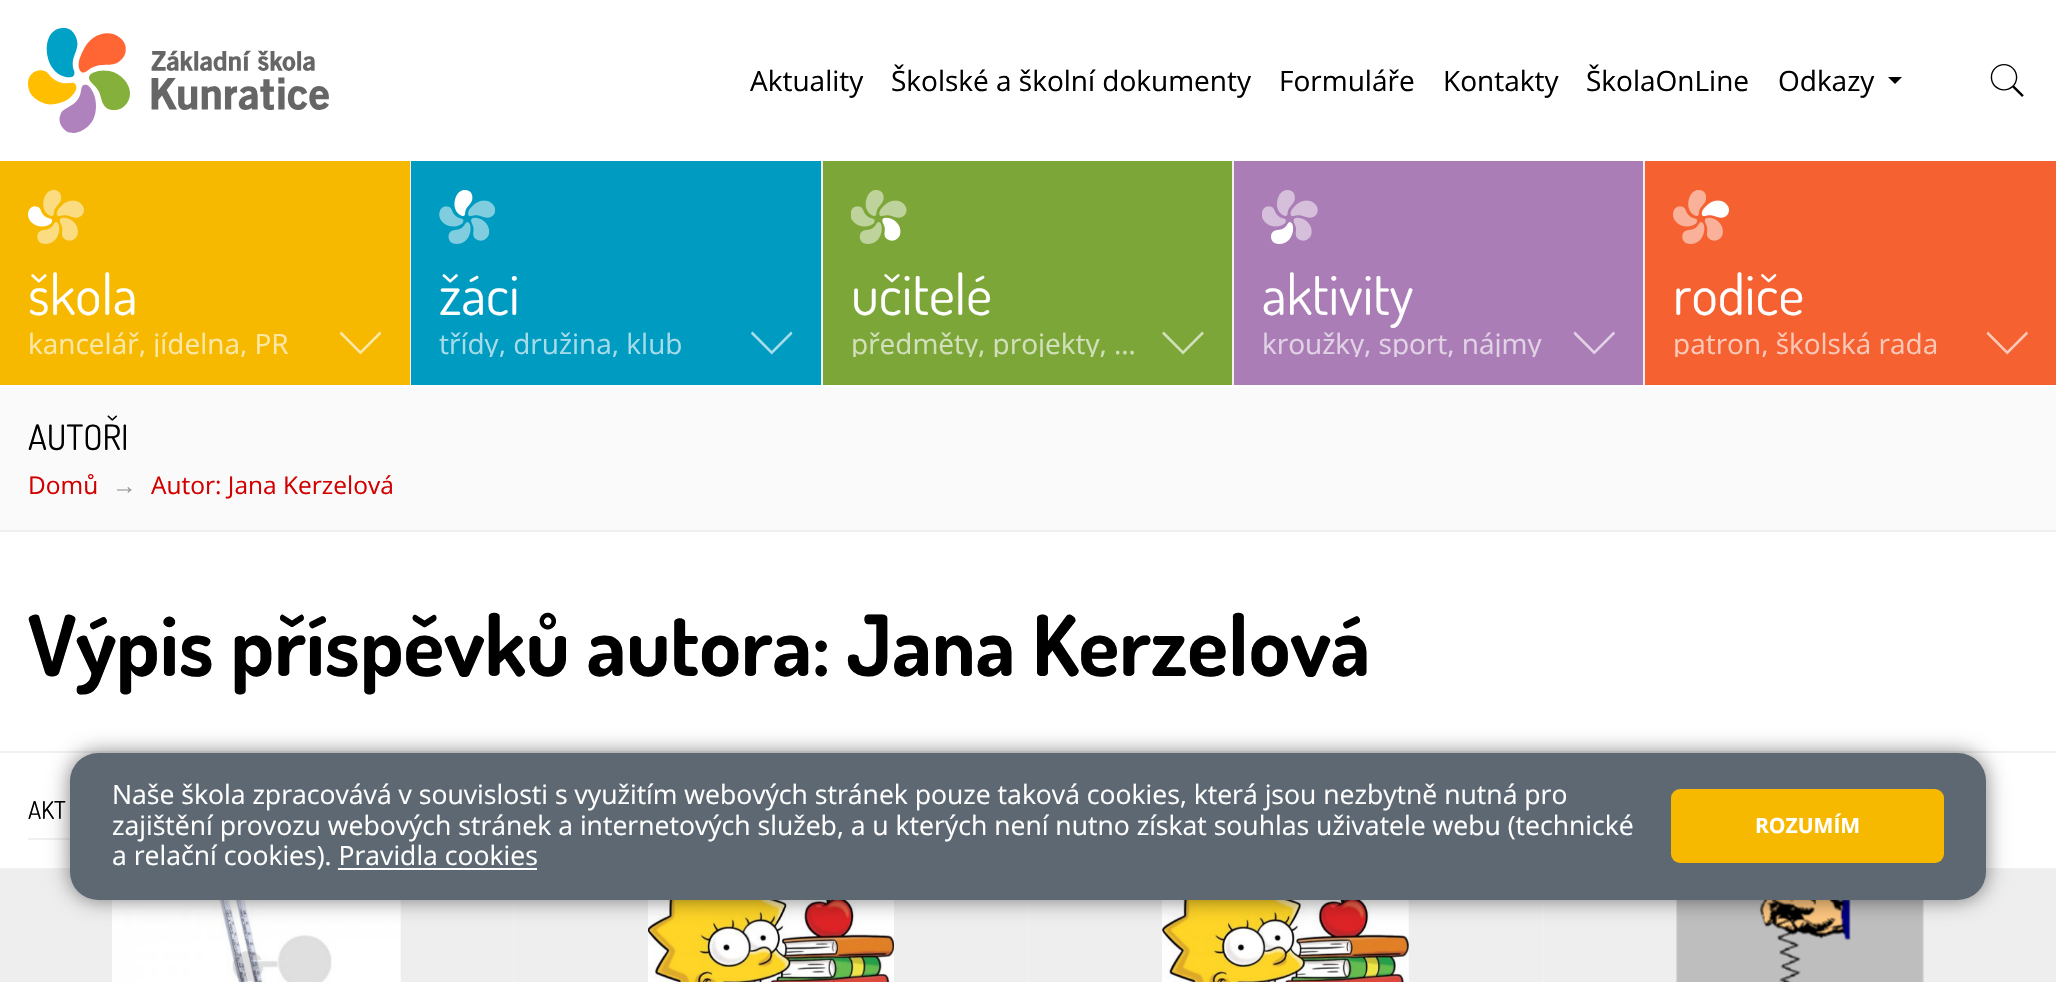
void draw(SkCanvas* canvas) {
	SkPaint fill;
	fill.setAntiAlias(true);
	auto makeFont = [&](const char* family, int weight, float size, bool italic = false) {
		SkFontStyle style(weight, SkFontStyle::kNormal_Width,
			italic ? SkFontStyle::kItalic_Slant : SkFontStyle::kUpright_Slant);
		SkFont result(fontMgr->matchFamilyStyle(family, style), size);
		result.setSubpixel(true);
		return result;
	};
	auto text = [&](const char* s, float x, float y, const SkFont& font) {
		canvas->drawString(s, x, y, font, fill);
	};
	auto box = [&](float l, float t, float r, float b) {
		canvas->drawRect(SkRect::MakeLTRB(l, t, r, b), fill);
	};
	auto roundBox = [&](float l, float t, float r, float b, float radius) {
		canvas->drawRoundRect(SkRect::MakeLTRB(l, t, r, b), radius, radius, fill);
	};
	auto picture = [&](const char* path, float l, float t, float r, float b) {
		auto image = SkImages::DeferredFromEncodedData(SkData::MakeFromFileName(path));
		canvas->drawImageRect(image, SkRect::MakeLTRB(l, t, r, b), SkSamplingOptions());
	};
	canvas->clear(0xFFFFFFFF);
	picture("image0.png", 28, 28, 329, 133);
	fill.setColor(0xFF000000);
	canvas->drawPath(SkPathBuilder().moveTo(1888, 77).lineTo(1902, 77).lineTo(1895, 84).close().detach(), fill);
	picture("image1.png", 1990, 64, 2024, 97);
	fill.setColor(0xFFF6B900);
	box(0, 161, 410, 385);
	fill.setColor(0xFFF0F0F0);
	box(410, 161, 411, 385);
	picture("image2.png", 28, 190, 84, 244);
	picture("image3.png", 339, 331, 382, 355);
	fill.setColor(0xFF009BC1);
	box(411, 161, 821, 385);
	fill.setColor(0xFFF0F0F0);
	box(821, 161, 823, 385);
	picture("image4.png", 439, 190, 495, 244);
	picture("image5.png", 751, 331, 793, 355);
	fill.setColor(0xFF7CA638);
	box(823, 161, 1232, 385);
	fill.setColor(0xFFF0F0F0);
	box(1232, 161, 1234, 385);
	picture("image6.png", 851, 190, 907, 244);
	picture("image7.png", 1162, 331, 1204, 355);
	fill.setColor(0xFFAA7DB6);
	box(1234, 161, 1643, 385);
	fill.setColor(0xFFF0F0F0);
	box(1643, 161, 1645, 385);
	picture("image8.png", 1262, 190, 1318, 244);
	picture("image9.png", 1573, 331, 1615, 355);
	fill.setColor(0xFFF56131);
	box(1645, 161, 2056, 385);
	picture("image10.png", 1673, 190, 1729, 244);
	picture("image11.png", 1986, 331, 2028, 355);
	fill.setColor(0xFFFAFAFA);
	box(0, 387, 2056, 530);
	fill.setColor(0xFFF0F0F0);
	box(0, 530, 2056, 532);
	box(0, 751, 2056, 753);
	box(28, 838, 70, 840);
	box(0, 868, 2056, 870);
	box(513, 900, 515, 982);
	fill.setColor(0xFFEEEEEE);
	box(0, 870, 513, 982);
	picture("image12.png", 112, 900, 401, 982);
	fill.setColor(0xFFF0F0F0);
	box(1027, 900, 1029, 982);
	fill.setColor(0xFFEEEEEE);
	box(515, 900, 1027, 982);
	picture("image13.png", 648, 900, 894, 982);
	fill.setColor(0xFFF0F0F0);
	box(1542, 900, 1544, 982);
	fill.setColor(0xFFEEEEEE);
	box(1029, 900, 1542, 982);
	picture("image14.png", 1162, 900, 1409, 982);
	box(1544, 870, 2056, 982);
	picture("image15.png", 1676, 900, 1924, 982);
	fill.setColor(0x80000000);
	fill.setMaskFilter(SkMaskFilter::MakeBlur(kNormal_SkBlurStyle, 10.5f));
	canvas->drawRoundRect(SkRect::MakeLTRB(70, 753, 1986, 900), 28, 28, fill);
	fill.setMaskFilter(nullptr);
	fill.setColor(0xFF5D6872);
	roundBox(70, 753, 1986, 900, 28);
	fill.setColor(0xFFFFFFFF);
	box(338, 868, 537, 870);
	fill.setColor(0xFFF6B900);
	roundBox(1671, 789, 1944, 863, 9);
	auto font1 = makeFont("Open Sans", 400, 28);
	fill.setColor(0xFF000000);
	text("Aktuality", 750, 91, font1);
	text("Školské a školní dokumenty", 891, 91, font1);
	text("Formuláře", 1279, 91, font1);
	text("Kontakty", 1443, 91, font1);
	text("ŠkolaOnLine", 1586, 91, font1);
	text("Odkazy", 1778, 91, font1);
	auto font2 = makeFont("Dosis", 400, 56);
	fill.setColor(0xFFFFFFFF);
	text("škola", 28, 315, font2);
	canvas->save();
	canvas->clipRect(SkRect::MakeLTRB(28, 329, 319, 357));
	fill.setColor(0xFFFCE7A6);
	text("kancelář, jídelna, PR", 28, 354, font1);
	canvas->restore();
	fill.setColor(0xFFFFFFFF);
	text("žáci", 439, 315, font2);
	canvas->save();
	canvas->clipRect(SkRect::MakeLTRB(439, 329, 730, 357));
	fill.setColor(0xFFA6DCE9);
	text("třídy, družina, klub", 439, 354, font1);
	canvas->restore();
	fill.setColor(0xFFFFFFFF);
	text("učitelé", 851, 315, font2);
	canvas->save();
	canvas->clipRect(SkRect::MakeLTRB(851, 329, 1141, 357));
	fill.setColor(0xFFD1E0B9);
	text("předměty, projekty, …", 851, 354, font1);
	canvas->restore();
	fill.setColor(0xFFFFFFFF);
	text("aktivity", 1262, 315, font2);
	canvas->save();
	canvas->clipRect(SkRect::MakeLTRB(1262, 329, 1552, 357));
	fill.setColor(0xFFE1D2E5);
	text("kroužky, sport, nájmy", 1262, 354, font1);
	canvas->restore();
	fill.setColor(0xFFFFFFFF);
	text("rodiče", 1673, 315, font2);
	canvas->save();
	canvas->clipRect(SkRect::MakeLTRB(1673, 329, 1965, 357));
	fill.setColor(0xFFFCC8B7);
	text("patron, školská rada", 1673, 354, font1);
	canvas->restore();
	auto font3 = makeFont("Dosis", 400, 35);
	fill.setColor(0xFF000000);
	text("AUTOŘI", 28, 450, font3);
	auto font4 = makeFont("Open Sans", 400, 24.5f);
	fill.setColor(0xFFD20000);
	text("Domů", 28, 494, font4);
	auto font5 = makeFont("Liberation Sans", 400, 24.5f);
	fill.setColor(0xFF999999);
	text("→", 112, 494, font5);
	fill.setColor(0xFFD20000);
	text("Autor: Jana Kerzelová", 151, 494, font4);
	auto font6 = makeFont("Dosis", 700, 84);
	fill.setColor(0xFF000000);
	text("Výpis příspěvků autora: Jana Kerzelová", 28, 676, font6);
	auto font7 = makeFont("Dosis", 400, 24.5f);
	text("AKT", 28, 819, font7);
	auto font8 = makeFont("Open Sans", 400, 26.6f);
	fill.setColor(0xFFFFFFFF);
	text("Naše škola zpracovává v souvislosti s využitím webových stránek pouze taková cookies, která jsou nezbytně nutná pro", 112, 804, font8);
	text("zajištění provozu webových stránek a internetových služeb, a u kterých není nutno získat souhlas uživatele webu (technické", 112, 835, font8);
	text("a relační cookies). Pravidla cookies", 112, 865, font8);
	auto font9 = makeFont("Open Sans", 700, 21);
	text("ROZUMÍM", 1755, 833, font9);
}
